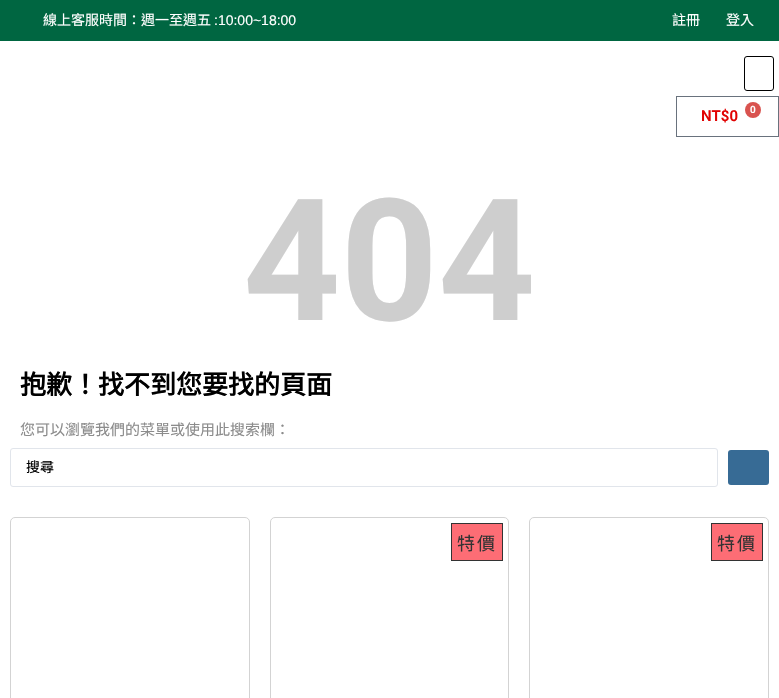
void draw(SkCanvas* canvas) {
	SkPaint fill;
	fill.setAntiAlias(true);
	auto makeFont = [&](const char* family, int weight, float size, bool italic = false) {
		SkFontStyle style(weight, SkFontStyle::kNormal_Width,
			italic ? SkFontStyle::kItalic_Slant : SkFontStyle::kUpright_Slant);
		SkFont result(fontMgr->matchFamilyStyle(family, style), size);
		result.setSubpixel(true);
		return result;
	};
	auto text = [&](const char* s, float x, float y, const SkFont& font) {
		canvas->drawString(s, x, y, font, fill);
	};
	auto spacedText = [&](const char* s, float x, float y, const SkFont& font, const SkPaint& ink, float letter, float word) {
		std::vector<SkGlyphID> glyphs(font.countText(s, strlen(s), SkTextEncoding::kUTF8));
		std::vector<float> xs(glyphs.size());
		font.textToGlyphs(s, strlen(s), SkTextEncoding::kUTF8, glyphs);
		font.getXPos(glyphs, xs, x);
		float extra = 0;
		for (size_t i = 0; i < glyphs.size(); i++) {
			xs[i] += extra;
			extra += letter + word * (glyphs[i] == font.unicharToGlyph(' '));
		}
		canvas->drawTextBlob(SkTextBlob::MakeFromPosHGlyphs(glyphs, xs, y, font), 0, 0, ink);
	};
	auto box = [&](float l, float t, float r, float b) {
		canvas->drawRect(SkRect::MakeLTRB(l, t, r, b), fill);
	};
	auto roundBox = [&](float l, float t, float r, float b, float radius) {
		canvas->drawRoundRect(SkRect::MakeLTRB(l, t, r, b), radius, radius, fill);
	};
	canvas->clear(0xFFFFFFFF);
	fill.setColor(0xFF006641);
	box(0, 0, 779, 41);
	fill.setStyle(SkPaint::kStroke_Style);
	fill.setStrokeWidth(1);
	fill.setColor(0xFF000000);
	canvas->drawRoundRect(SkRect::MakeLTRB(744.5f, 56.5f, 773.5f, 90.5f), 2.5f, 2.5f, fill);
	fill.setColor(0xFF69727D);
	canvas->drawRect(SkRect::MakeLTRB(676.5f, 96.5f, 778.5f, 136.5f), fill);
	fill.setStyle(SkPaint::kFill_Style);
	fill.setColor(0xFFD9534F);
	canvas->drawCircle(753, 110, 8, fill);
	fill.setStyle(SkPaint::kStroke_Style);
	fill.setColor(0xFFE1E5EB);
	canvas->drawRoundRect(SkRect::MakeLTRB(10.5f, 448.5f, 717.5f, 486.5f), 2.5f, 2.5f, fill);
	fill.setStyle(SkPaint::kFill_Style);
	fill.setColor(0xFF376B95);
	roundBox(728, 450, 769, 485, 3);
	fill.setStyle(SkPaint::kStroke_Style);
	fill.setColor(0xFFD3D3D3);
	canvas->drawRoundRect(SkRect::MakeLTRB(10.5f, 517.5f, 249.5f, 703.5f), 4.5f, 4.5f, fill);
	canvas->drawRoundRect(SkRect::MakeLTRB(270.5f, 517.5f, 508.5f, 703.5f), 4.5f, 4.5f, fill);
	fill.setStyle(SkPaint::kFill_Style);
	fill.setColor(0xFFFD6D75);
	canvas->drawRect(SkRect::MakeLTRB(451.5f, 523.5f, 502.5f, 560.5f), fill);
	fill.setStyle(SkPaint::kStroke_Style);
	fill.setColor(0xFF333333);
	canvas->drawRect(SkRect::MakeLTRB(451.5f, 523.5f, 502.5f, 560.5f), fill);
	fill.setColor(0xFFD3D3D3);
	canvas->drawRoundRect(SkRect::MakeLTRB(529.5f, 517.5f, 768.5f, 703.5f), 4.5f, 4.5f, fill);
	fill.setStyle(SkPaint::kFill_Style);
	fill.setColor(0xFFFD6D75);
	canvas->drawRect(SkRect::MakeLTRB(711.5f, 523.5f, 762.5f, 560.5f), fill);
	fill.setStyle(SkPaint::kStroke_Style);
	fill.setColor(0xFF333333);
	canvas->drawRect(SkRect::MakeLTRB(711.5f, 523.5f, 762.5f, 560.5f), fill);
	auto font1 = makeFont("Noto Sans CJK TC", 400, 14);
	fill.setStyle(SkPaint::kFill_Style);
	fill.setColor(0xFFFFFFFF);
	text("線上客服時間：週一至週五", 43, 25, font1);
	auto font2 = makeFont("Liberation Sans", 400, 14);
	text(":10:00~18:00", 214, 25, font2);
	text("註冊", 672, 25, font1);
	text("登入", 726, 25, font1);
	auto font3 = makeFont("Roboto", 600, 15);
	fill.setColor(0xFFE10202);
	text("NT$0", 701, 121, font3);
	auto font4 = makeFont("Roboto", 600, 10);
	fill.setColor(0xFFFFFFFF);
	text("0", 750, 113, font4);
	auto font5 = makeFont("Roboto", 700, 170);
	fill.setColor(0xFFCECECE);
	text("404", 243, 320, font5);
	auto font6 = makeFont("Noto Sans CJK TC", 700, 26);
	fill.setColor(0xFF000000);
	text("抱歉！找不到您要找的頁面", 20, 394, font6);
	auto font7 = makeFont("Noto Sans CJK TC", 400, 15);
	fill.setColor(0xFF8C8C8C);
	text("您可以瀏覽我們的菜單或使用此搜索欄：", 20, 435, font7);
	fill.setColor(0xFF000000);
	text("搜尋", 26, 472, font1);
	auto font8 = makeFont("Noto Sans CJK TC", 400, 18);
	fill.setColor(0xFF333333);
	spacedText("特價", 457, 550, font8, fill, 2, 0);
	spacedText("特價", 717, 550, font8, fill, 2, 0);
}
